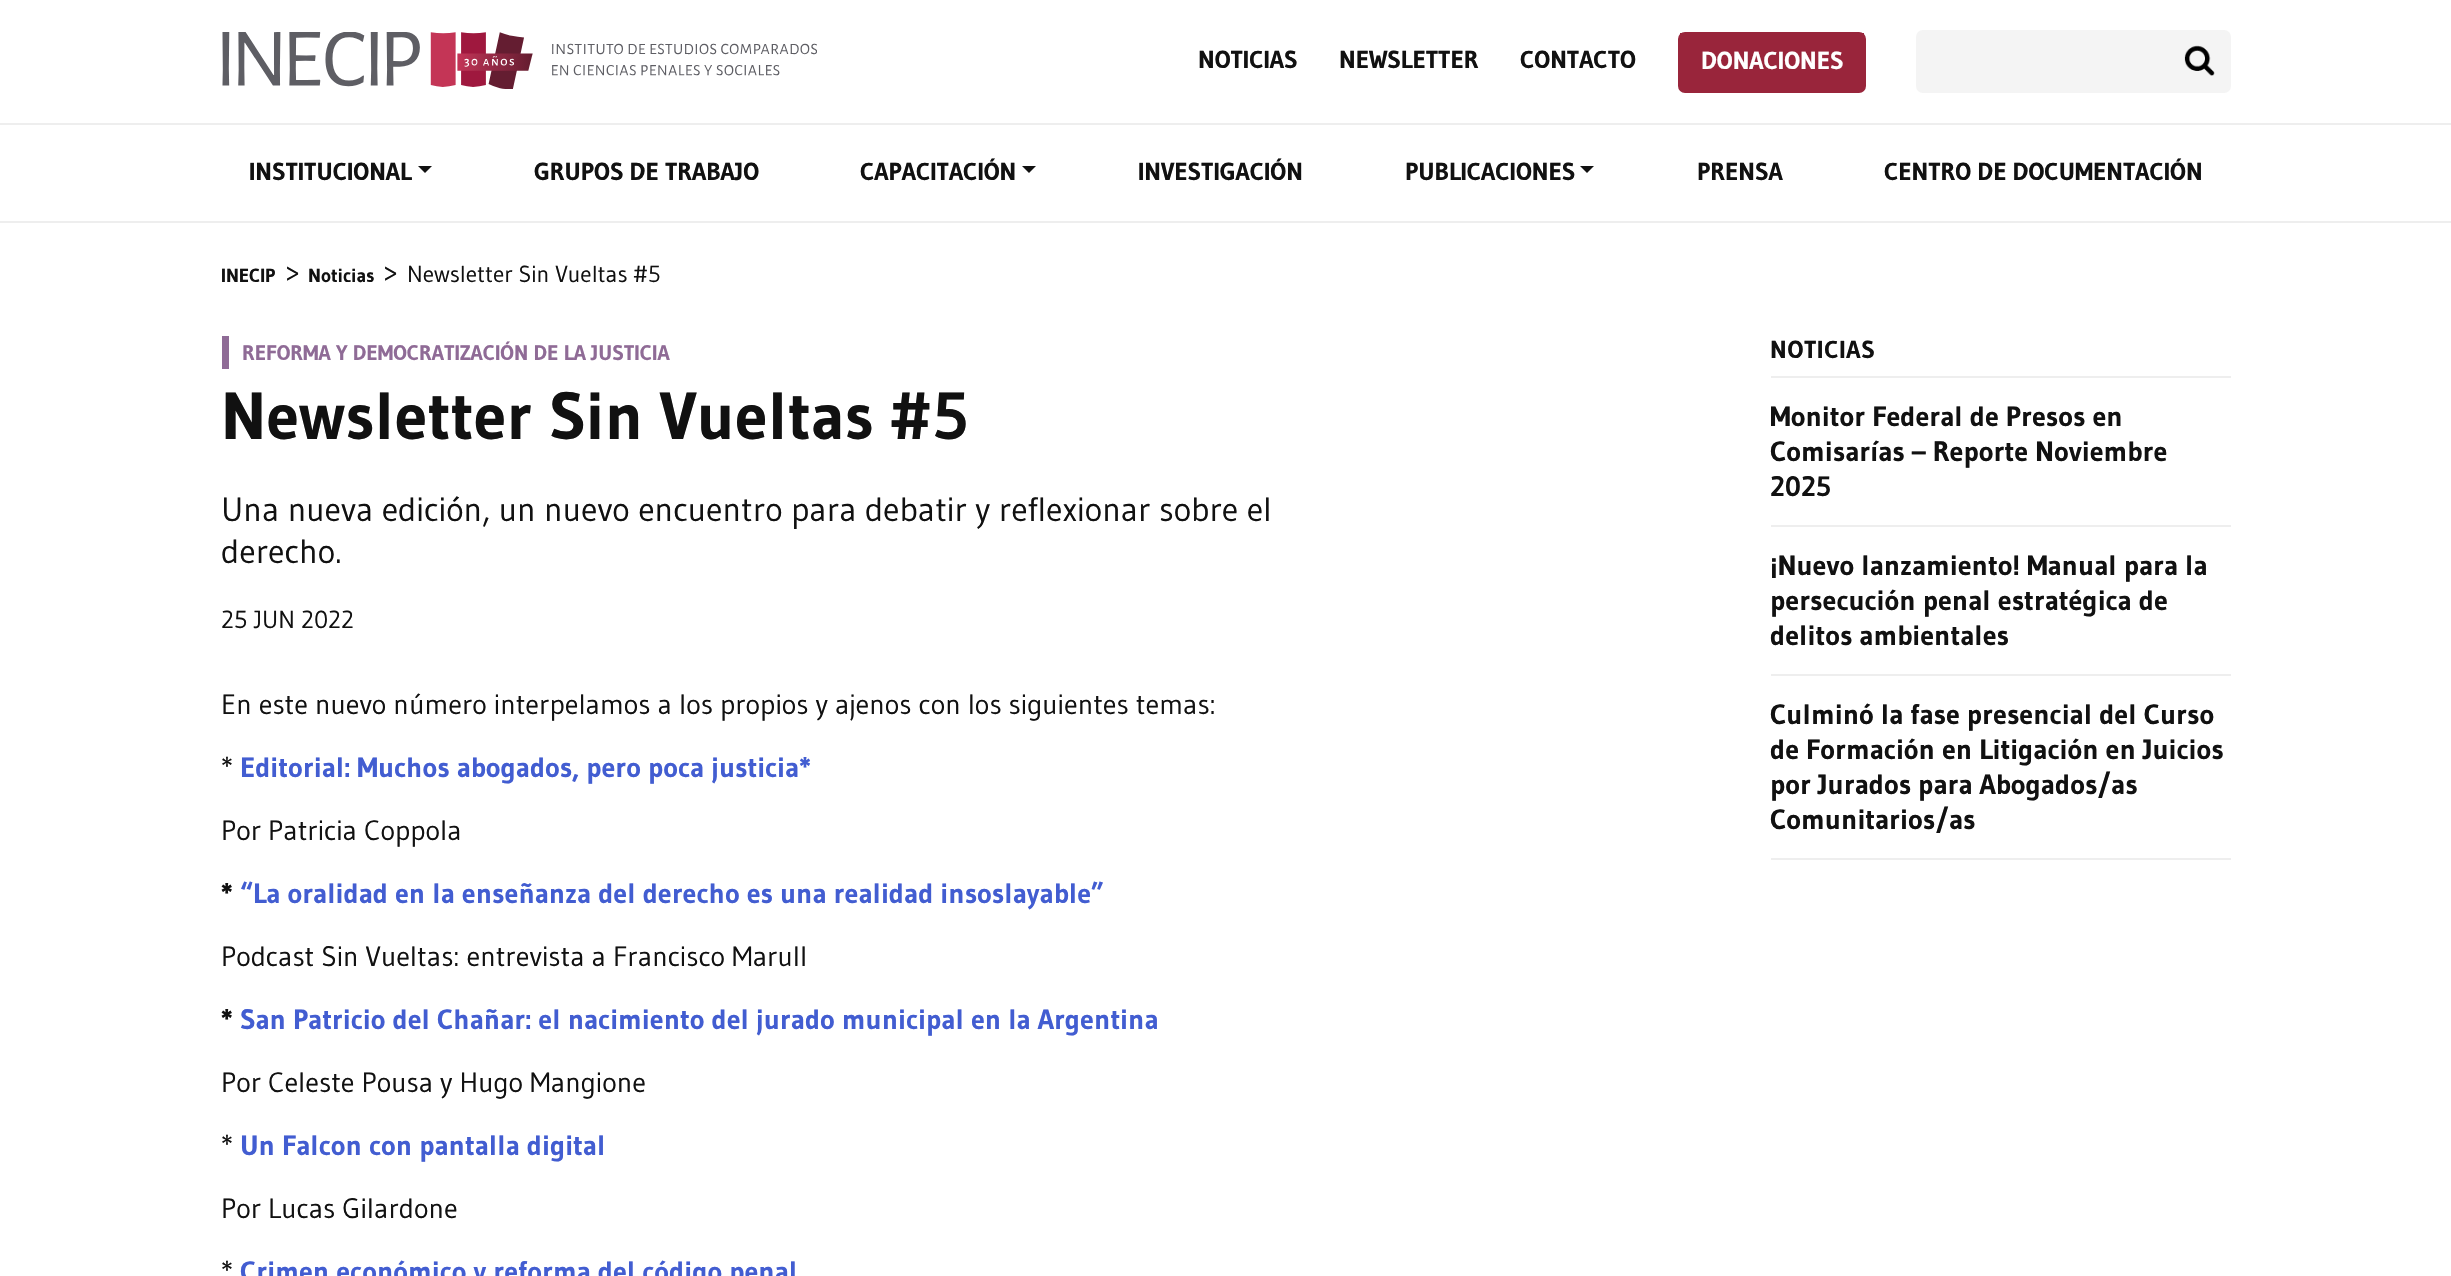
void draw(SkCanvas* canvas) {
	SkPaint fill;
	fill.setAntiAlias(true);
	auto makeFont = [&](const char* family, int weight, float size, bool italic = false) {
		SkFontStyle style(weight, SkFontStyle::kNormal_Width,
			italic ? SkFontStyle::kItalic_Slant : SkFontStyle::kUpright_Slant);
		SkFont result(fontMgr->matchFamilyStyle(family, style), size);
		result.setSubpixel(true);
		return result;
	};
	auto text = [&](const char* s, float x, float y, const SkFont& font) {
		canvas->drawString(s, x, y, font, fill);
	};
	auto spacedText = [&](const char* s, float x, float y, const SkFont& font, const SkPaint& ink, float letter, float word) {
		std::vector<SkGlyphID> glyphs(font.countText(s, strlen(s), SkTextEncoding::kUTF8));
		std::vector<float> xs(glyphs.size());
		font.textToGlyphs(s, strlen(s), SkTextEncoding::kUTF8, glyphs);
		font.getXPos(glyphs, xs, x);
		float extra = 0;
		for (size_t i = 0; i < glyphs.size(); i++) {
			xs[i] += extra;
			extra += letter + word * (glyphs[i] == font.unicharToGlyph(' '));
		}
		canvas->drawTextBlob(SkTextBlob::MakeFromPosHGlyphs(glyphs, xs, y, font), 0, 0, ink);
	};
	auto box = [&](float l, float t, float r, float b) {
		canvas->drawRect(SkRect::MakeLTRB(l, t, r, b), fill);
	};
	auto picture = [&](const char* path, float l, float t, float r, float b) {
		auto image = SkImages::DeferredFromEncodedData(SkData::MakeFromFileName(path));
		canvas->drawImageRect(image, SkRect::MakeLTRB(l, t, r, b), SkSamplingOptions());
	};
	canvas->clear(0xFFFFFFFF);
	picture("image0.png", 222, 32, 817, 89);
	fill.setStyle(SkPaint::kStroke_Style);
	fill.setStrokeWidth(2);
	fill.setColor(0xFF99253B);
	canvas->drawRoundRect(SkRect::MakeLTRB(1679, 33, 1865, 92), 6, 6, fill);
	fill.setStyle(SkPaint::kFill_Style);
	box(1680, 33, 1864, 91);
	fill.setColor(0xFFF4F4F4);
	canvas->drawRoundRect(SkRect::MakeLTRB(1917, 31, 2230, 92), 6, 6, fill);
	fill.setStyle(SkPaint::kStroke_Style);
	canvas->drawRoundRect(SkRect::MakeLTRB(1917, 31, 2230, 92), 6, 6, fill);
	picture("image1.png", 2184, 45, 2215, 76);
	fill.setStyle(SkPaint::kFill_Style);
	fill.setColor(0xFFEEEEEE);
	box(0, 123, 2451, 125);
	box(0, 221, 2451, 223);
	fill.setColor(0xFF111111);
	canvas->drawPath(SkPathBuilder().moveTo(418, 166).lineTo(432, 166).lineTo(425, 173).close().detach(), fill);
	canvas->drawPath(SkPathBuilder().moveTo(1022, 166).lineTo(1036, 166).lineTo(1029, 173).close().detach(), fill);
	canvas->drawPath(SkPathBuilder().moveTo(1580, 166).lineTo(1594, 166).lineTo(1587, 173).close().detach(), fill);
	fill.setColor(0xFF8F6B96);
	box(222, 336, 229, 369);
	fill.setColor(0xFFEEEEEE);
	box(1771, 376, 2231, 378);
	box(1771, 525, 2231, 527);
	box(1771, 674, 2231, 676);
	box(1771, 858, 2231, 860);
	auto font1 = makeFont("Gudea", 700, 24.5f);
	fill.setColor(0xFF111111);
	text("NOTICIAS", 1198, 68, font1);
	text("NEWSLETTER", 1339, 68, font1);
	text("CONTACTO", 1520, 68, font1);
	fill.setColor(0xFFFFFFFF);
	text("DONACIONES", 1701, 69, font1);
	fill.setColor(0xFF111111);
	text("INSTITUCIONAL", 249, 180, font1);
	text("GRUPOS DE TRABAJO", 534, 180, font1);
	text("CAPACITACIÓN", 860, 180, font1);
	text("INVESTIGACIÓN", 1138, 180, font1);
	text("PUBLICACIONES", 1405, 180, font1);
	text("PRENSA", 1697, 180, font1);
	text("CENTRO DE DOCUMENTACIÓN", 1884, 180, font1);
	auto font2 = makeFont("Gudea", 700, 19);
	text("INECIP", 221, 282, font2);
	auto font3 = makeFont("Gudea", 400, 28);
	text(">", 285, 282, font3);
	text("Noticias", 308, 282, font2);
	text(">", 383, 282, font3);
	auto font4 = makeFont("Gudea", 400, 23.1f);
	text("Newsletter Sin Vueltas #5", 407, 282, font4);
	auto font5 = makeFont("Gudea", 700, 21);
	fill.setColor(0xFF8F6B96);
	text("REFORMA Y DEMOCRATIZACIÓN DE LA JUSTICIA", 242, 360, font5);
	auto font6 = makeFont("Gudea", 700, 66.5f);
	fill.setColor(0xFF111111);
	text("Newsletter Sin Vueltas #5", 221, 439, font6);
	auto font7 = makeFont("Gudea", 400, 33.6f);
	text("Una nueva edición, un nuevo encuentro para debatir y reflexionar sobre el", 221, 521, font7);
	text("derecho.", 221, 563, font7);
	auto font8 = makeFont("Gudea", 400, 24.5f);
	text("25 JUN 2022", 221, 628, font8);
	text("En este nuevo número interpelamos a los propios y ajenos con los siguientes temas:", 221, 714, font3);
	text("*", 221, 777, font3);
	auto font9 = makeFont("Gudea", 700, 28);
	fill.setColor(0xFF425DD1);
	text("Editorial: Muchos abogados, pero poca justicia*", 240, 777, font9);
	fill.setColor(0xFF111111);
	text("Por Patricia Coppola", 221, 840, font3);
	text("*", 221, 903, font9);
	fill.setColor(0xFF425DD1);
	text("“La oralidad en la enseñanza del derecho es una realidad insoslayable”", 240, 903, font9);
	fill.setColor(0xFF111111);
	text("Podcast Sin Vueltas: entrevista a Francisco Marull", 221, 966, font3);
	text("*", 221, 1029, font9);
	fill.setColor(0xFF425DD1);
	text("San Patricio del Chañar: el nacimiento del jurado municipal en la Argentina", 240, 1029, font9);
	fill.setColor(0xFF111111);
	text("Por Celeste Pousa y Hugo Mangione", 221, 1092, font3);
	text("*", 221, 1155, font3);
	fill.setColor(0xFF425DD1);
	text("Un Falcon con pantalla digital", 240, 1155, font9);
	fill.setColor(0xFF111111);
	text("Por Lucas Gilardone", 221, 1218, font3);
	text("*", 221, 1281, font3);
	fill.setColor(0xFF425DD1);
	text("Crimen económico y reforma del código penal", 240, 1281, font9);
	fill.setColor(0xFF111111);
	spacedText("NOTICIAS", 1770, 358, font1, fill, 0.75f, 0);
	text("Monitor Federal de Presos en", 1770, 426, font9);
	text("Comisarías – Reporte Noviembre", 1770, 461, font9);
	text("2025", 1770, 496, font9);
	text("¡Nuevo lanzamiento! Manual para la", 1770, 575, font9);
	text("persecución penal estratégica de", 1770, 610, font9);
	text("delitos ambientales", 1770, 645, font9);
	text("Culminó la fase presencial del Curso", 1770, 724, font9);
	text("de Formación en Litigación en Juicios", 1770, 759, font9);
	text("por Jurados para Abogados/as", 1770, 794, font9);
	text("Comunitarios/as", 1770, 829, font9);
}
